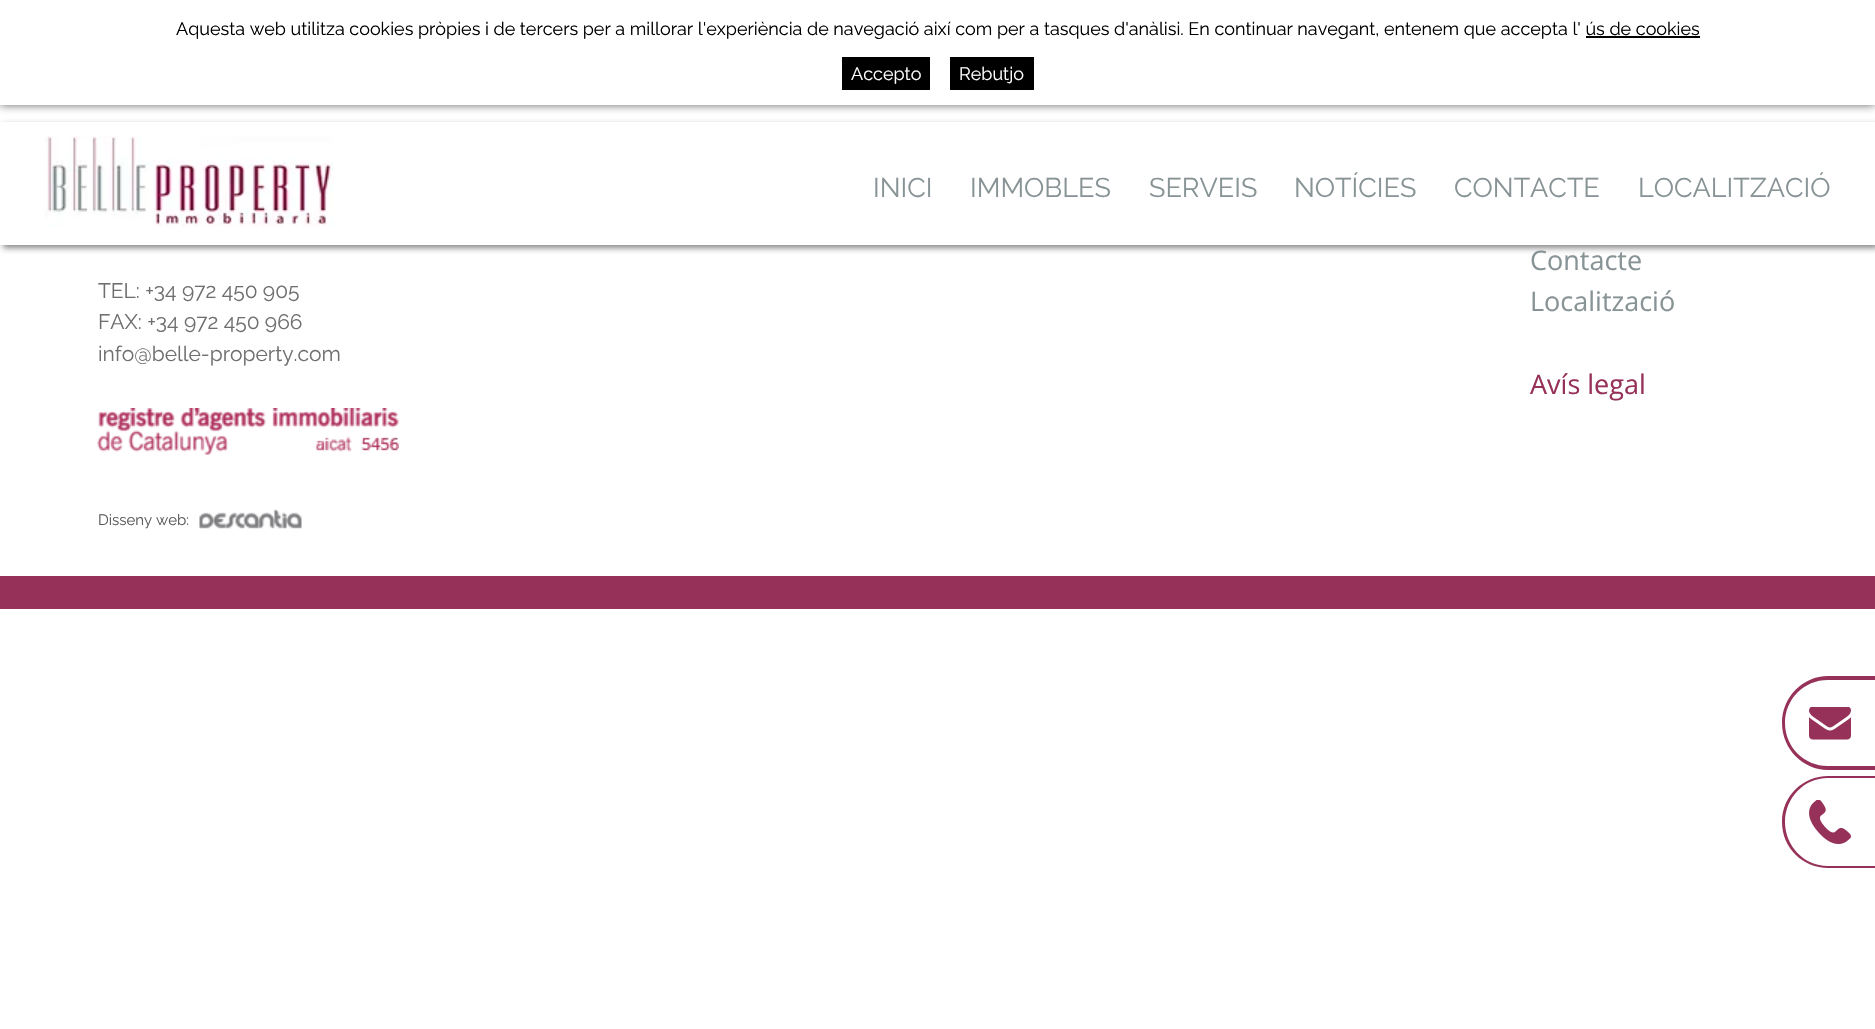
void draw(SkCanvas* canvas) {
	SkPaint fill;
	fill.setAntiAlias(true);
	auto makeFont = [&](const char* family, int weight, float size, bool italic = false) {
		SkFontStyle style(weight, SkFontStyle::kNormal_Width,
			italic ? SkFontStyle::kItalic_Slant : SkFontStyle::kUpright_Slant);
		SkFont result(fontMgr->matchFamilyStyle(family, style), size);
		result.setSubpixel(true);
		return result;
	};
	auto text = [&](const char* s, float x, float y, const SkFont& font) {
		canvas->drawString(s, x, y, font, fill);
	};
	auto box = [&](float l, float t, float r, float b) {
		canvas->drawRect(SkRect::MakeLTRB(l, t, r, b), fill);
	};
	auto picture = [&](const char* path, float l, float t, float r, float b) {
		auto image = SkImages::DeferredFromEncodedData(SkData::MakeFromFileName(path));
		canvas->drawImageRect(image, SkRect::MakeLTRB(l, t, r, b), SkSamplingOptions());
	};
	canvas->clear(0xFFFFFFFF);
	fill.setColor(0xBF323232);
	fill.setMaskFilter(SkMaskFilter::MakeBlur(kNormal_SkBlurStyle, 4.5f));
	canvas->drawRect(SkRect::MakeLTRB(0, 0, 1875, 105), fill);
	fill.setMaskFilter(nullptr);
	fill.setColor(0xFFFFFFFF);
	box(0, 0, 1875, 105);
	fill.setColor(0xFF000000);
	box(1586, 36, 1700, 38);
	box(842, 57, 930, 90);
	box(950, 57, 1034, 90);
	fill.setColor(0xFF878787);
	fill.setMaskFilter(SkMaskFilter::MakeBlur(kNormal_SkBlurStyle, 3));
	canvas->drawRect(SkRect::MakeLTRB(3, 125, 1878, 248), fill);
	fill.setMaskFilter(nullptr);
	fill.setColor(0xFFFFFFFF);
	box(0, 122, 1875, 245);
	picture("image0.png", 45, 136, 333, 227);
	fill.setColor(0xFF963259);
	box(0, 576, 1875, 609);
	picture("image1.png", 97, 408, 399, 455);
	picture("image2.png", 199, 509, 302, 529);
	canvas->drawPath(SkPathBuilder(SkPathFillType::kEvenOdd).moveTo(1828, 676).lineTo(1875, 676).lineTo(1875, 770).lineTo(1828, 770).cubicTo(1803, 770, 1782, 749, 1782, 723).cubicTo(1782, 697, 1803, 676, 1828, 676).close().moveTo(1828, 680).lineTo(1875, 680).lineTo(1875, 766).lineTo(1828, 766).cubicTo(1804, 766, 1785, 747, 1785, 723).cubicTo(1785, 699, 1804, 680, 1828, 680).close().detach(), fill);
	picture("image3.png", 1809, 707, 1851, 740);
	canvas->drawPath(SkPathBuilder(SkPathFillType::kEvenOdd).moveTo(1828, 776).lineTo(1875, 776).lineTo(1875, 868).lineTo(1828, 868).cubicTo(1803, 868, 1782, 848, 1782, 822).cubicTo(1782, 796, 1803, 776, 1828, 776).close().moveTo(1828, 778).lineTo(1875, 778).lineTo(1875, 866).lineTo(1828, 866).cubicTo(1804, 866, 1785, 846, 1785, 822).cubicTo(1785, 798, 1804, 778, 1828, 778).close().detach(), fill);
	picture("image4.png", 1809, 800, 1851, 844);
	auto font1 = makeFont("Raleway", 400, 18);
	fill.setColor(0xFF000000);
	text("Aquesta web utilitza cookies pròpies i de tercers per a millorar l'experiència de navegació així com per a tasques d'anàlisi. En continuar navegant, entenem que accepta l' ús de cookies", 176, 35, font1);
	fill.setColor(0xFFFFFFFF);
	text("Accepto", 851, 80, font1);
	text("Rebutjo", 959, 80, font1);
	auto font2 = makeFont("Raleway", 400, 27);
	fill.setColor(0xFF889396);
	text("INICI", 873, 197, font2);
	text("IMMOBLES", 970, 197, font2);
	text("SERVEIS", 1149, 197, font2);
	text("NOTÍCIES", 1294, 197, font2);
	text("CONTACTE", 1454, 197, font2);
	text("LOCALITZACIÓ", 1638, 197, font2);
	auto font3 = makeFont("Raleway", 400, 21);
	fill.setColor(0xFF6F6F6F);
	text("TEL: +34 972 450 905", 98, 298, font3);
	text("FAX: +34 972 450 966", 98, 329, font3);
	text("info@belle-property.com", 98, 361, font3);
	auto font4 = makeFont("Raleway", 400, 15);
	fill.setColor(0xFF58585A);
	text("Disseny web:", 98, 525, font4);
	auto font5 = makeFont("Open Sans", 400, 27);
	fill.setColor(0xFF889396);
	text("Contacte", 1530, 270, font5);
	text("Localització", 1530, 311, font5);
	fill.setColor(0xFF963259);
	text("Avís legal", 1530, 394, font5);
}
